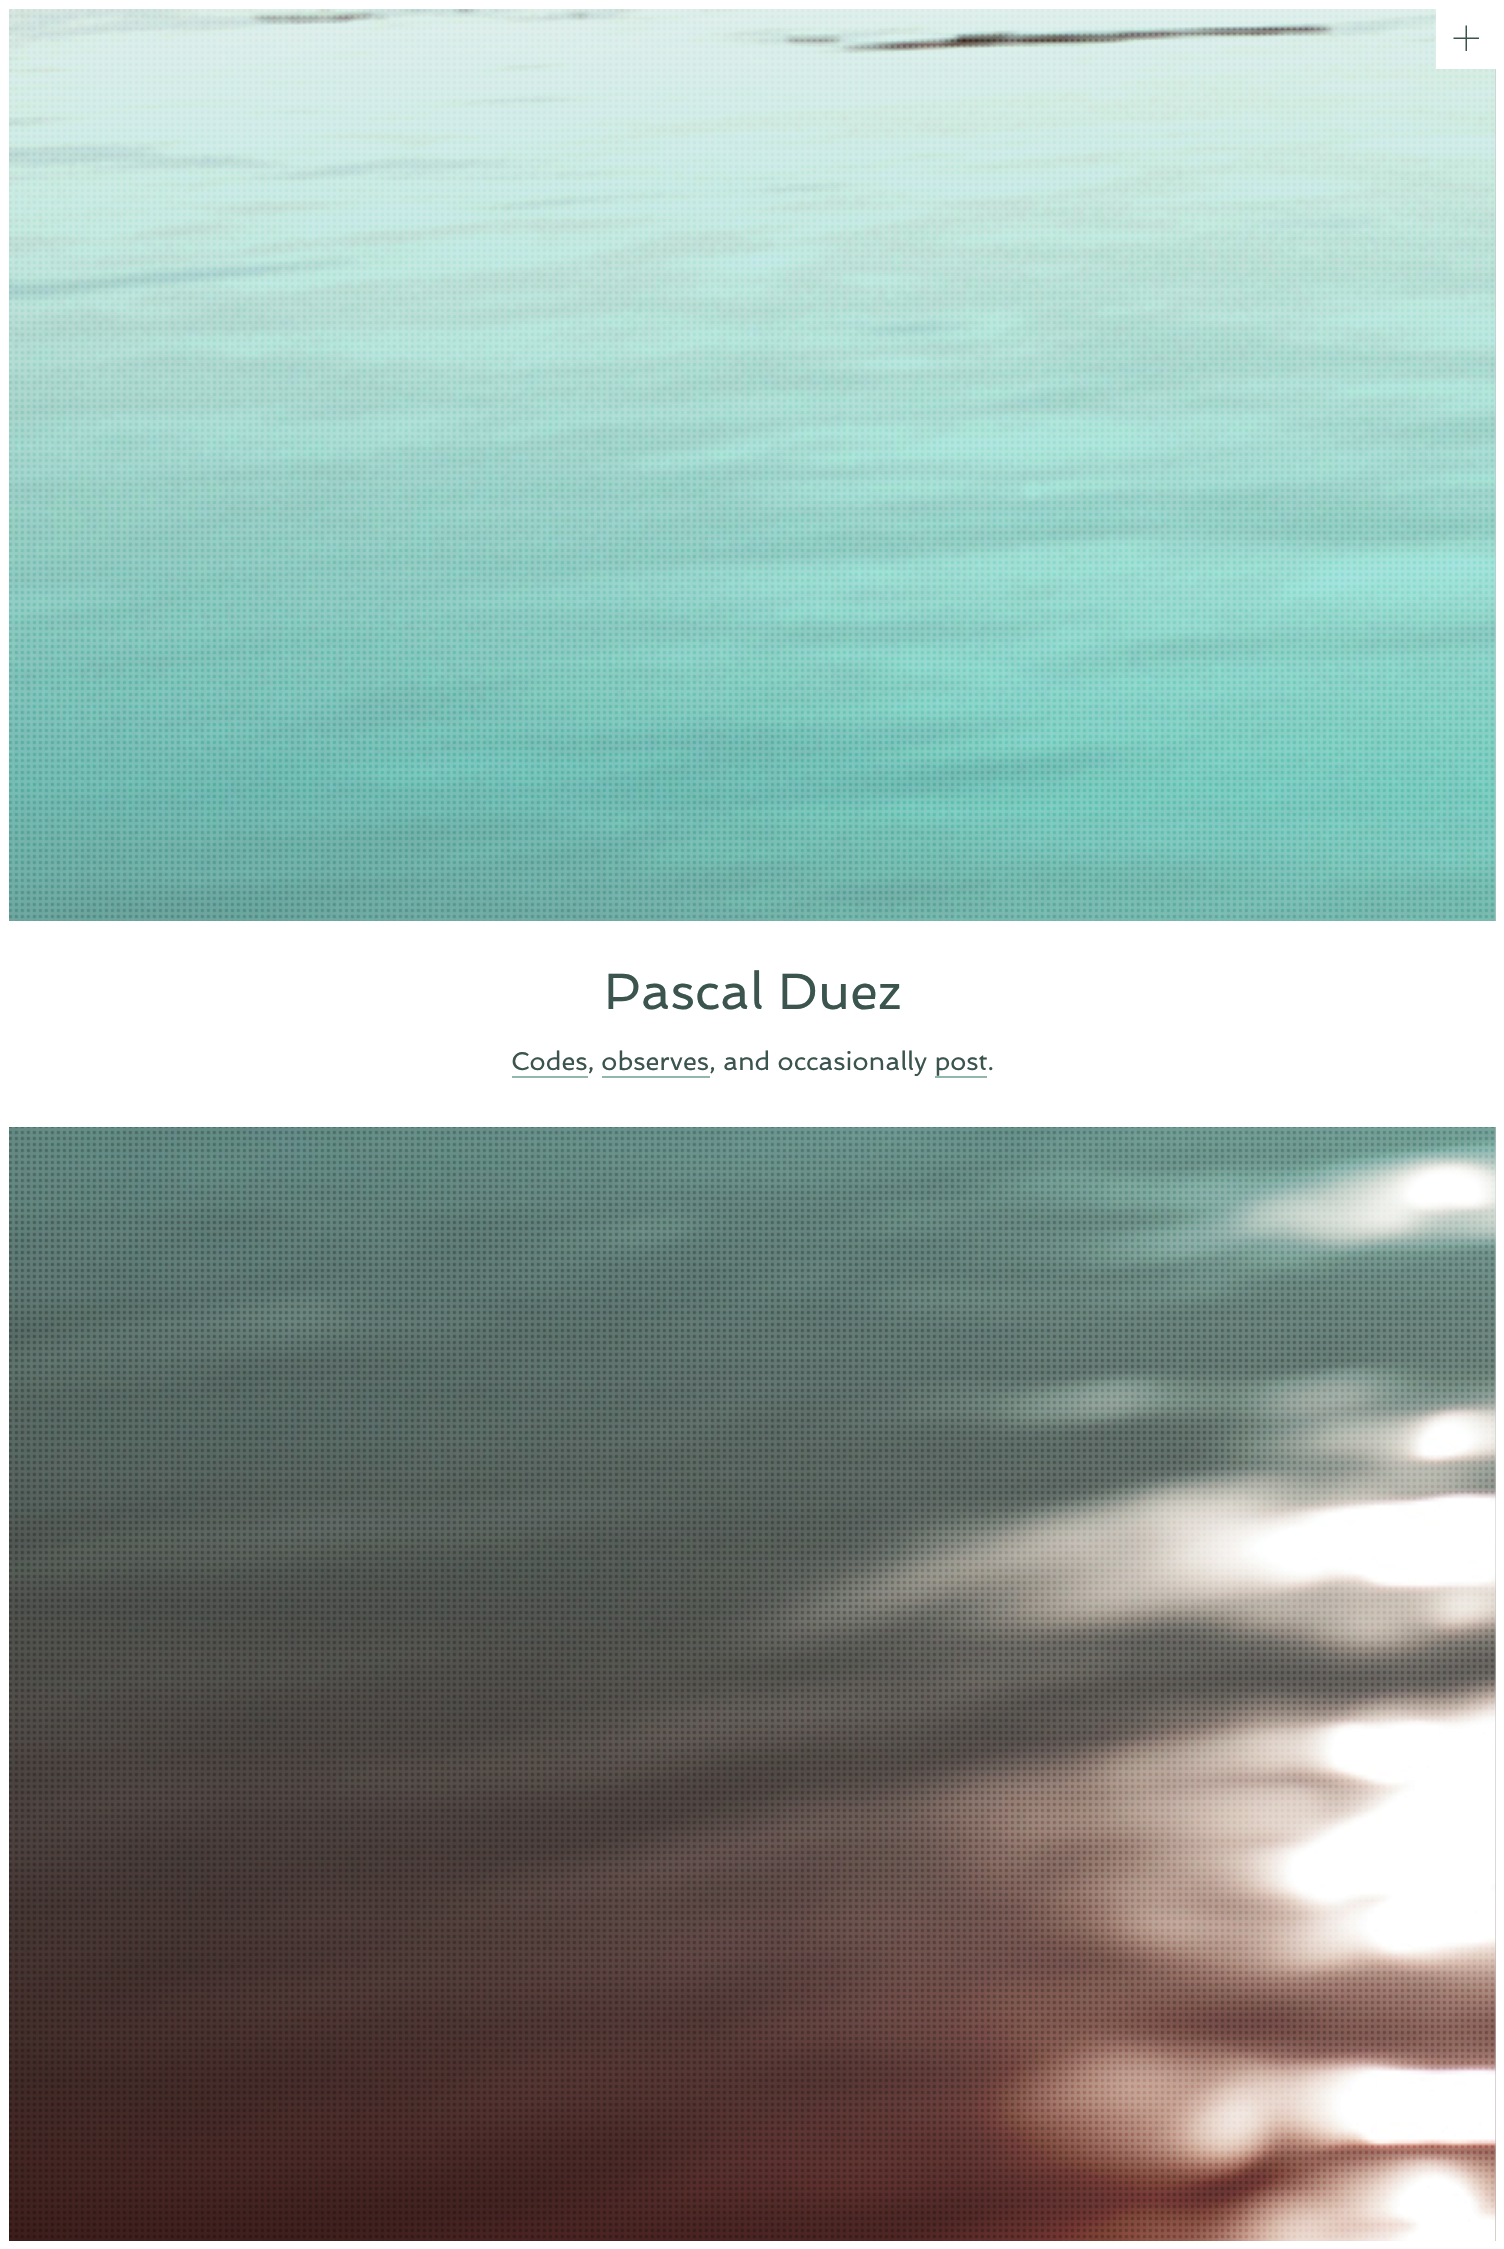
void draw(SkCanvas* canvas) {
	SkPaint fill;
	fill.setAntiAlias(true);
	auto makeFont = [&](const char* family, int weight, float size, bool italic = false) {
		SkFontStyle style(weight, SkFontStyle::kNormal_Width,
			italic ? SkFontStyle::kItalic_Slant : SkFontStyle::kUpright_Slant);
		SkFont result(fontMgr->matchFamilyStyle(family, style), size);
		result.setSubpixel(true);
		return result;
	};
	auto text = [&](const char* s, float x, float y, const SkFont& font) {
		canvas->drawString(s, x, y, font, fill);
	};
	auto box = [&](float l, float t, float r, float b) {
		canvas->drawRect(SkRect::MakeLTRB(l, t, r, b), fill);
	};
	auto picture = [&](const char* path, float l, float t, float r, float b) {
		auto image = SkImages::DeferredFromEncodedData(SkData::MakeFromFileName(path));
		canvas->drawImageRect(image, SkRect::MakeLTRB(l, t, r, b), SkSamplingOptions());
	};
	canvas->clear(0xFFFFFFFF);
	picture("image1.png", 9, 9, 1496, 2241);
	fill.setColor(0xFFFFFFFF);
	box(1436, 9, 1496, 69);
	picture("image0.png", 1453, 25, 1479, 51);
	box(9, 921, 1496, 1127);
	fill.setColor(0xFF91B6AD);
	box(512, 1076, 588, 1078);
	auto font1 = makeFont("Spinnaker", 400, 51);
	fill.setColor(0xFF3B544E);
	text("Pascal Duez", 604, 1009, font1);
	auto font2 = makeFont("Spinnaker", 400, 25.5f);
	text("Codes, observes, and occasionally post.", 511, 1070, font2);
	fill.setColor(0xFF91B6AD);
	box(602, 1076, 710, 1078);
	box(935, 1076, 987, 1078);
}
